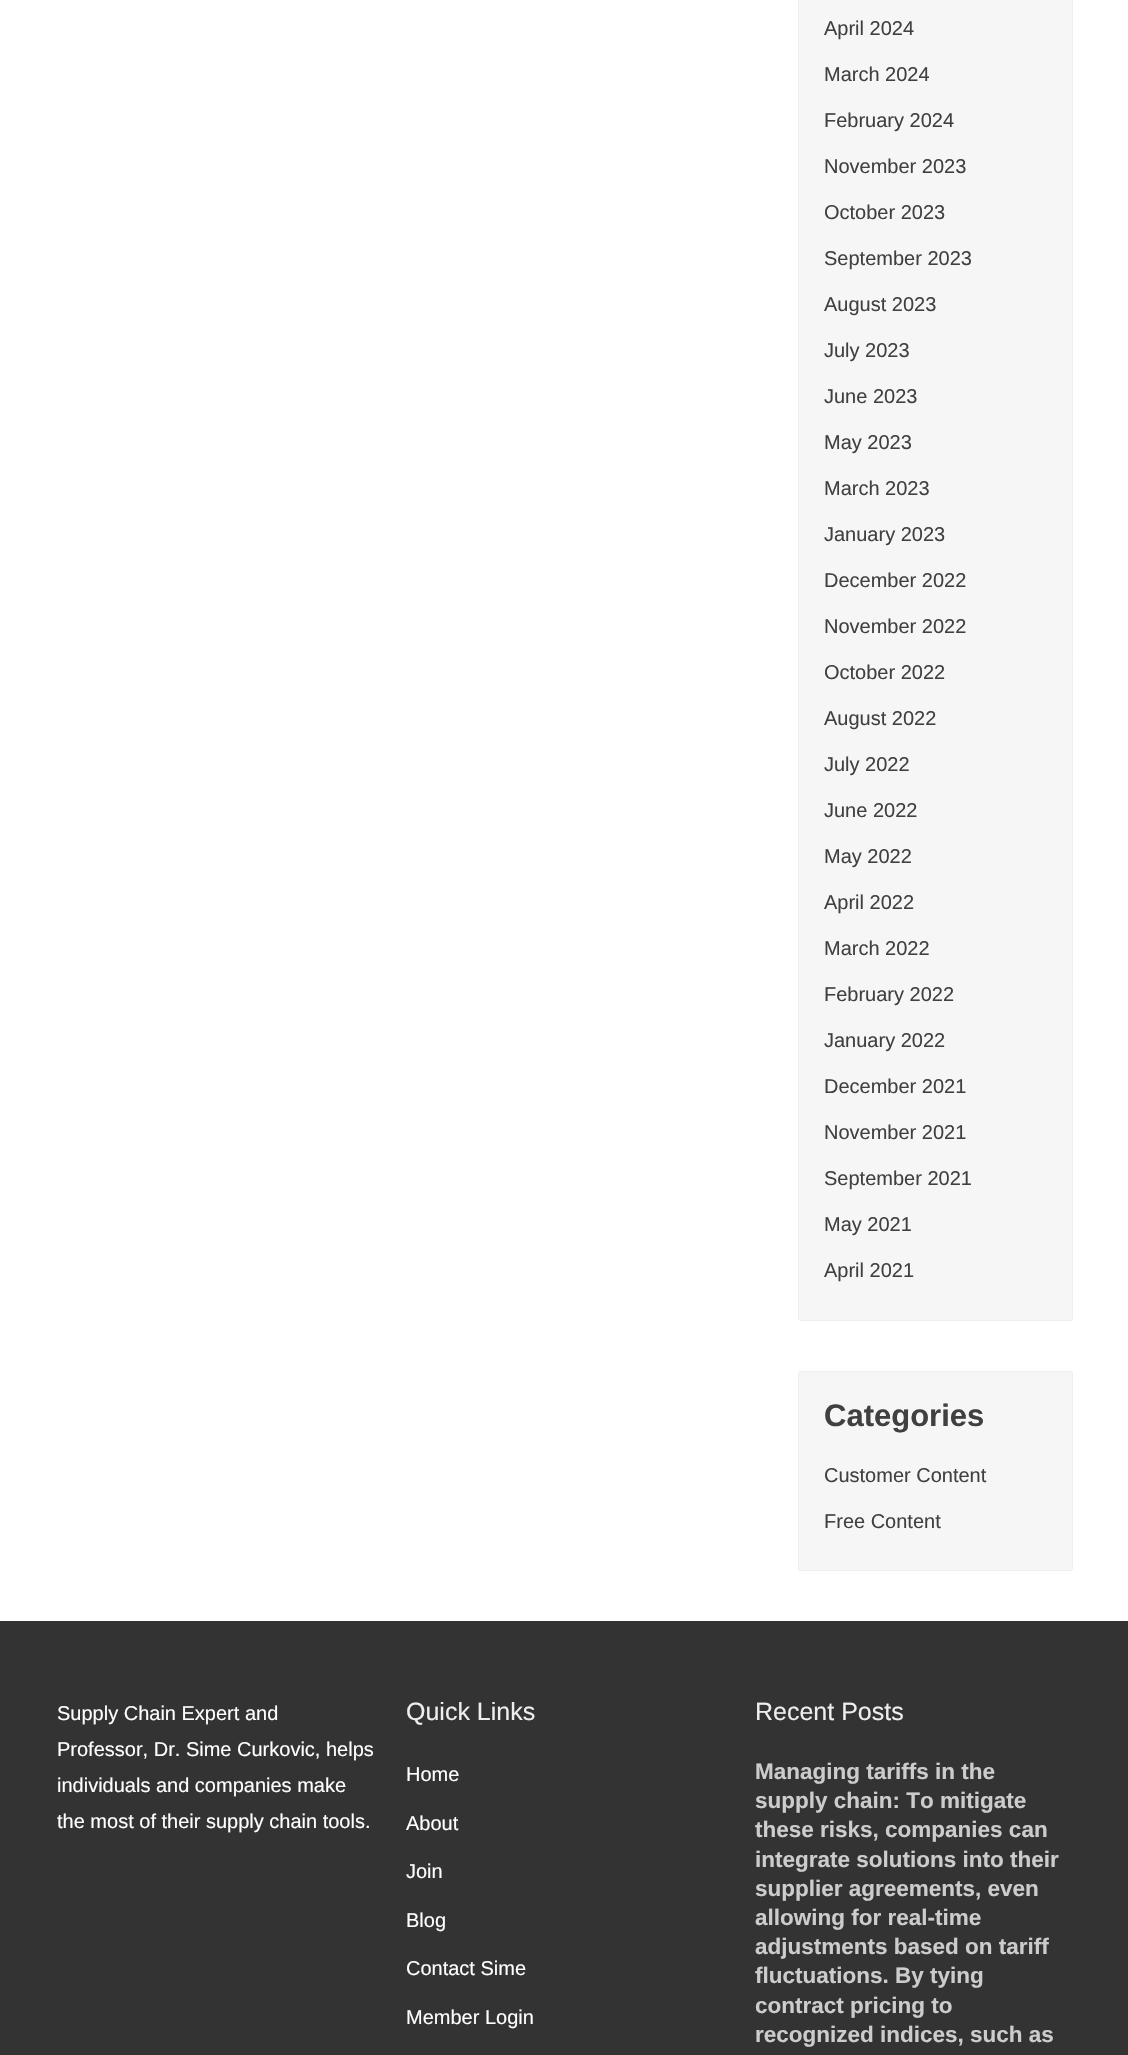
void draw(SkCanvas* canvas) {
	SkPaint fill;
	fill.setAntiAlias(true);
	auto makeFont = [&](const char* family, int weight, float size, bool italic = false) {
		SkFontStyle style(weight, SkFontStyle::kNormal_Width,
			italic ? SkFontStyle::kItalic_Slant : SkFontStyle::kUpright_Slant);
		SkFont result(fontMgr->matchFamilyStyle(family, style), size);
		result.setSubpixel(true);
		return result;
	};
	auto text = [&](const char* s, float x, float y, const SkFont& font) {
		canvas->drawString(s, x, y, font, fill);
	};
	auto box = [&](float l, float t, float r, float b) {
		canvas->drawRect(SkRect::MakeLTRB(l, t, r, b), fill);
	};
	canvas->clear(0xFFFFFFFF);
	fill.setColor(0xFFF6F6F6);
	canvas->drawRoundRect(SkRect::MakeLTRB(798.5f, -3.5f, 1072.5f, 1320.5f), 2, 2, fill);
	fill.setStyle(SkPaint::kStroke_Style);
	fill.setStrokeWidth(1);
	fill.setColor(0xFFEEEEEE);
	canvas->drawRoundRect(SkRect::MakeLTRB(798.5f, -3.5f, 1072.5f, 1320.5f), 2, 2, fill);
	fill.setStyle(SkPaint::kFill_Style);
	fill.setColor(0xFFF6F6F6);
	canvas->drawRoundRect(SkRect::MakeLTRB(798.5f, 1371.5f, 1072.5f, 1570.5f), 2, 2, fill);
	fill.setStyle(SkPaint::kStroke_Style);
	fill.setColor(0xFFEEEEEE);
	canvas->drawRoundRect(SkRect::MakeLTRB(798.5f, 1371.5f, 1072.5f, 1570.5f), 2, 2, fill);
	fill.setStyle(SkPaint::kFill_Style);
	fill.setColor(0xFF333333);
	box(0, 1621, 1128, 2055);
	auto font1 = makeFont("Liberation Sans", 400, 20);
	fill.setColor(0xFF404040);
	text("April 2024", 824, 35, font1);
	text("March 2024", 824, 81, font1);
	text("February 2024", 824, 127, font1);
	text("November 2023", 824, 173, font1);
	text("October 2023", 824, 219, font1);
	text("September 2023", 824, 265, font1);
	text("August 2023", 824, 311, font1);
	text("July 2023", 824, 357, font1);
	text("June 2023", 824, 403, font1);
	text("May 2023", 824, 449, font1);
	text("March 2023", 824, 495, font1);
	text("January 2023", 824, 541, font1);
	text("December 2022", 824, 587, font1);
	text("November 2022", 824, 633, font1);
	text("October 2022", 824, 679, font1);
	text("August 2022", 824, 725, font1);
	text("July 2022", 824, 771, font1);
	text("June 2022", 824, 817, font1);
	text("May 2022", 824, 863, font1);
	text("April 2022", 824, 909, font1);
	text("March 2022", 824, 955, font1);
	text("February 2022", 824, 1001, font1);
	text("January 2022", 824, 1047, font1);
	text("December 2021", 824, 1093, font1);
	text("November 2021", 824, 1139, font1);
	text("September 2021", 824, 1185, font1);
	text("May 2021", 824, 1231, font1);
	text("April 2021", 824, 1277, font1);
	auto font2 = makeFont("Liberation Sans", 700, 31);
	text("Categories", 824, 1426, font2);
	text("Customer Content", 824, 1482, font1);
	text("Free Content", 824, 1528, font1);
	fill.setColor(0xFFFFFFFF);
	text("Supply Chain Expert and", 57, 1720, font1);
	text("Professor, Dr. Sime Curkovic, helps", 57, 1756, font1);
	text("individuals and companies make", 57, 1792, font1);
	text("the most of their supply chain tools.", 57, 1828, font1);
	auto font3 = makeFont("Liberation Sans", 400, 25);
	fill.setColor(0xFFEEEEEE);
	text("Quick Links", 406, 1720, font3);
	fill.setColor(0xFFFFFFFF);
	text("Home", 406, 1781, font1);
	text("About", 406, 1830, font1);
	text("Join", 406, 1878, font1);
	text("Blog", 406, 1927, font1);
	text("Contact Sime", 406, 1975, font1);
	text("Member Login", 406, 2024, font1);
	fill.setColor(0xFFEEEEEE);
	text("Recent Posts", 755, 1720, font3);
	auto font4 = makeFont("Liberation Sans", 700, 22.5f);
	fill.setColor(0xFFCCCCCC);
	text("Managing tariffs in the", 755, 1779, font4);
	text("supply chain: To mitigate", 755, 1808, font4);
	text("these risks, companies can", 755, 1837, font4);
	text("integrate solutions into their", 755, 1867, font4);
	text("supplier agreements, even", 755, 1896, font4);
	text("allowing for real-time", 755, 1925, font4);
	text("adjustments based on tariff", 755, 1954, font4);
	text("fluctuations. By tying", 755, 1983, font4);
	text("contract pricing to", 755, 2013, font4);
	text("recognized indices, such as", 755, 2042, font4);
}
